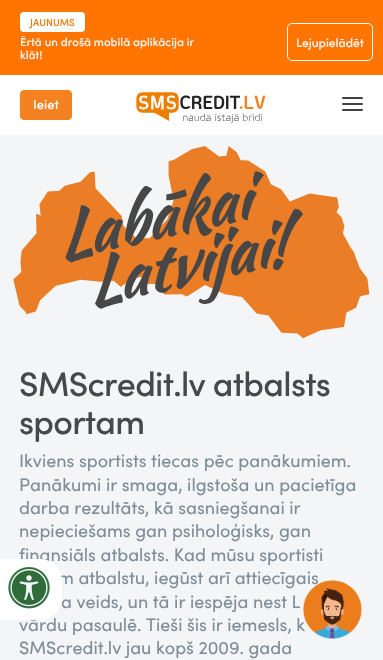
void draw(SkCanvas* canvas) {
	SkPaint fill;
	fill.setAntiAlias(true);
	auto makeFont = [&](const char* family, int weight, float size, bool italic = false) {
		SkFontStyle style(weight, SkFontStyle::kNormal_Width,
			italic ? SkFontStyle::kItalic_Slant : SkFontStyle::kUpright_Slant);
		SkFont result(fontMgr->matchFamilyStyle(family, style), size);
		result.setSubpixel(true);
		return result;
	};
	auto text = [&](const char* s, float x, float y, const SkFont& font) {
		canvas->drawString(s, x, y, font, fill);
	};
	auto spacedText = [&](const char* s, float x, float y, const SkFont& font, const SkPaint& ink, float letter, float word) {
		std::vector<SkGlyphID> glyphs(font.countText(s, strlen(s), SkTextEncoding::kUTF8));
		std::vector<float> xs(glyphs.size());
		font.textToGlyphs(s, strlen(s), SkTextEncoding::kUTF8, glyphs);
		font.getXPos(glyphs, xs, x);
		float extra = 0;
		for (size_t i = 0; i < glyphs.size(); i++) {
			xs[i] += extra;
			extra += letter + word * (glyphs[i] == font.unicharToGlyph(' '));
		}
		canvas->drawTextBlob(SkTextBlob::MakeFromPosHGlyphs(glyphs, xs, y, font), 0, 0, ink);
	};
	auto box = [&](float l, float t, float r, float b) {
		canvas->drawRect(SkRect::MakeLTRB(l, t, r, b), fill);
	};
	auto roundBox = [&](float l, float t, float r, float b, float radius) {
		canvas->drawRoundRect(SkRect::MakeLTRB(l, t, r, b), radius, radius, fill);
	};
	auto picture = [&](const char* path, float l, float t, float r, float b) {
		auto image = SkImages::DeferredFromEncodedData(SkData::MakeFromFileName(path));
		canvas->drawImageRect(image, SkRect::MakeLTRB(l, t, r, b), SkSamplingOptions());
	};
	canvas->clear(0xFFFFFFFF);
	fill.setColor(0xFFFF7500);
	box(0, 0, 383, 75);
	fill.setColor(0xFFFFFFFF);
	roundBox(20, 12, 85, 32, 4);
	fill.setStyle(SkPaint::kStroke_Style);
	fill.setStrokeWidth(1);
	canvas->drawRoundRect(SkRect::MakeLTRB(287.5f, 23.5f, 372.5f, 60.5f), 4.5f, 4.5f, fill);
	fill.setStyle(SkPaint::kFill_Style);
	fill.setColor(0xFFF58221);
	canvas->drawRoundRect(SkRect::MakeLTRB(20.5f, 90.5f, 71.5f, 119.5f), 3.5f, 3.5f, fill);
	fill.setStyle(SkPaint::kStroke_Style);
	canvas->drawRoundRect(SkRect::MakeLTRB(20.5f, 90.5f, 71.5f, 119.5f), 3.5f, 3.5f, fill);
	picture("image0.png", 136, 92, 266, 123);
	fill.setStyle(SkPaint::kFill_Style);
	fill.setColor(0xFF414141);
	roundBox(342, 97, 363, 99, 1);
	roundBox(342, 103, 363, 105, 1);
	roundBox(342, 109, 363, 111, 1);
	fill.setColor(0xFFF4F5F6);
	box(0, 135, 383, 660);
	picture("image1.png", 13, 146, 370, 339);
	auto font1 = makeFont("Sofia", 500, 10);
	fill.setColor(0xFFFF7602);
	text("JAUNUMS", 30, 26, font1);
	auto font2 = makeFont("Sofia", 500, 11.5f);
	fill.setColor(0xFFF4F5F6);
	text("Ērtā un drošā mobilā aplikācija ir", 20, 46, font2);
	text("klāt!", 20, 59, font2);
	auto font3 = makeFont("Sofia", 500, 12);
	text("Lejupielādēt", 296, 47, font3);
	auto font4 = makeFont("Sofia", 500, 13);
	fill.setColor(0xFFFFFFFF);
	text("Ieiet", 33, 109, font4);
	auto font5 = makeFont("Sofia", 500, 34);
	fill.setColor(0xFF46484B);
	spacedText("SMScredit.lv atbalsts", 19, 396, font5, fill, -0.7f, 0);
	spacedText("sportam", 19, 434, font5, fill, -0.7f, 0);
	auto font6 = makeFont("Sofia", 400, 18);
	fill.setColor(0xFF7D8E99);
	text("Ikviens sportists tiecas pēc panākumiem.", 19, 467, font6);
	text("Panākumi ir smaga, ilgstoša un pacietīga", 19, 491, font6);
	text("darba rezultāts, kā sasniegšanai ir", 19, 514, font6);
	text("nepieciešams gan psiholoģisks, gan", 19, 537, font6);
	text("finansiāls atbalsts. Kad mūsu sportisti", 19, 561, font6);
	text("m atbalstu, iegūst arī attiecīgais", 58, 584, font6);
	text("a veids, un tā ir iespēja nest L", 61, 608, font6);
	text("vārdu pasaulē. Tieši šis ir iemesls, k", 19, 631, font6);
	text("SMScredit.lv jau kopš 2009. gada", 19, 654, font6);
	fill.setColor(0xFFFFFFFF);
	canvas->drawPath(SkPathBuilder().moveTo(0, 559).lineTo(40, 559).cubicTo(52, 559, 62, 569, 62, 581).lineTo(62, 598).cubicTo(62, 610, 52, 620, 40, 620).lineTo(0, 620).close().detach(), fill);
	picture("image2.png", 8, 567, 50, 609);
	picture("image3.png", 303, 580, 362, 639);
}
